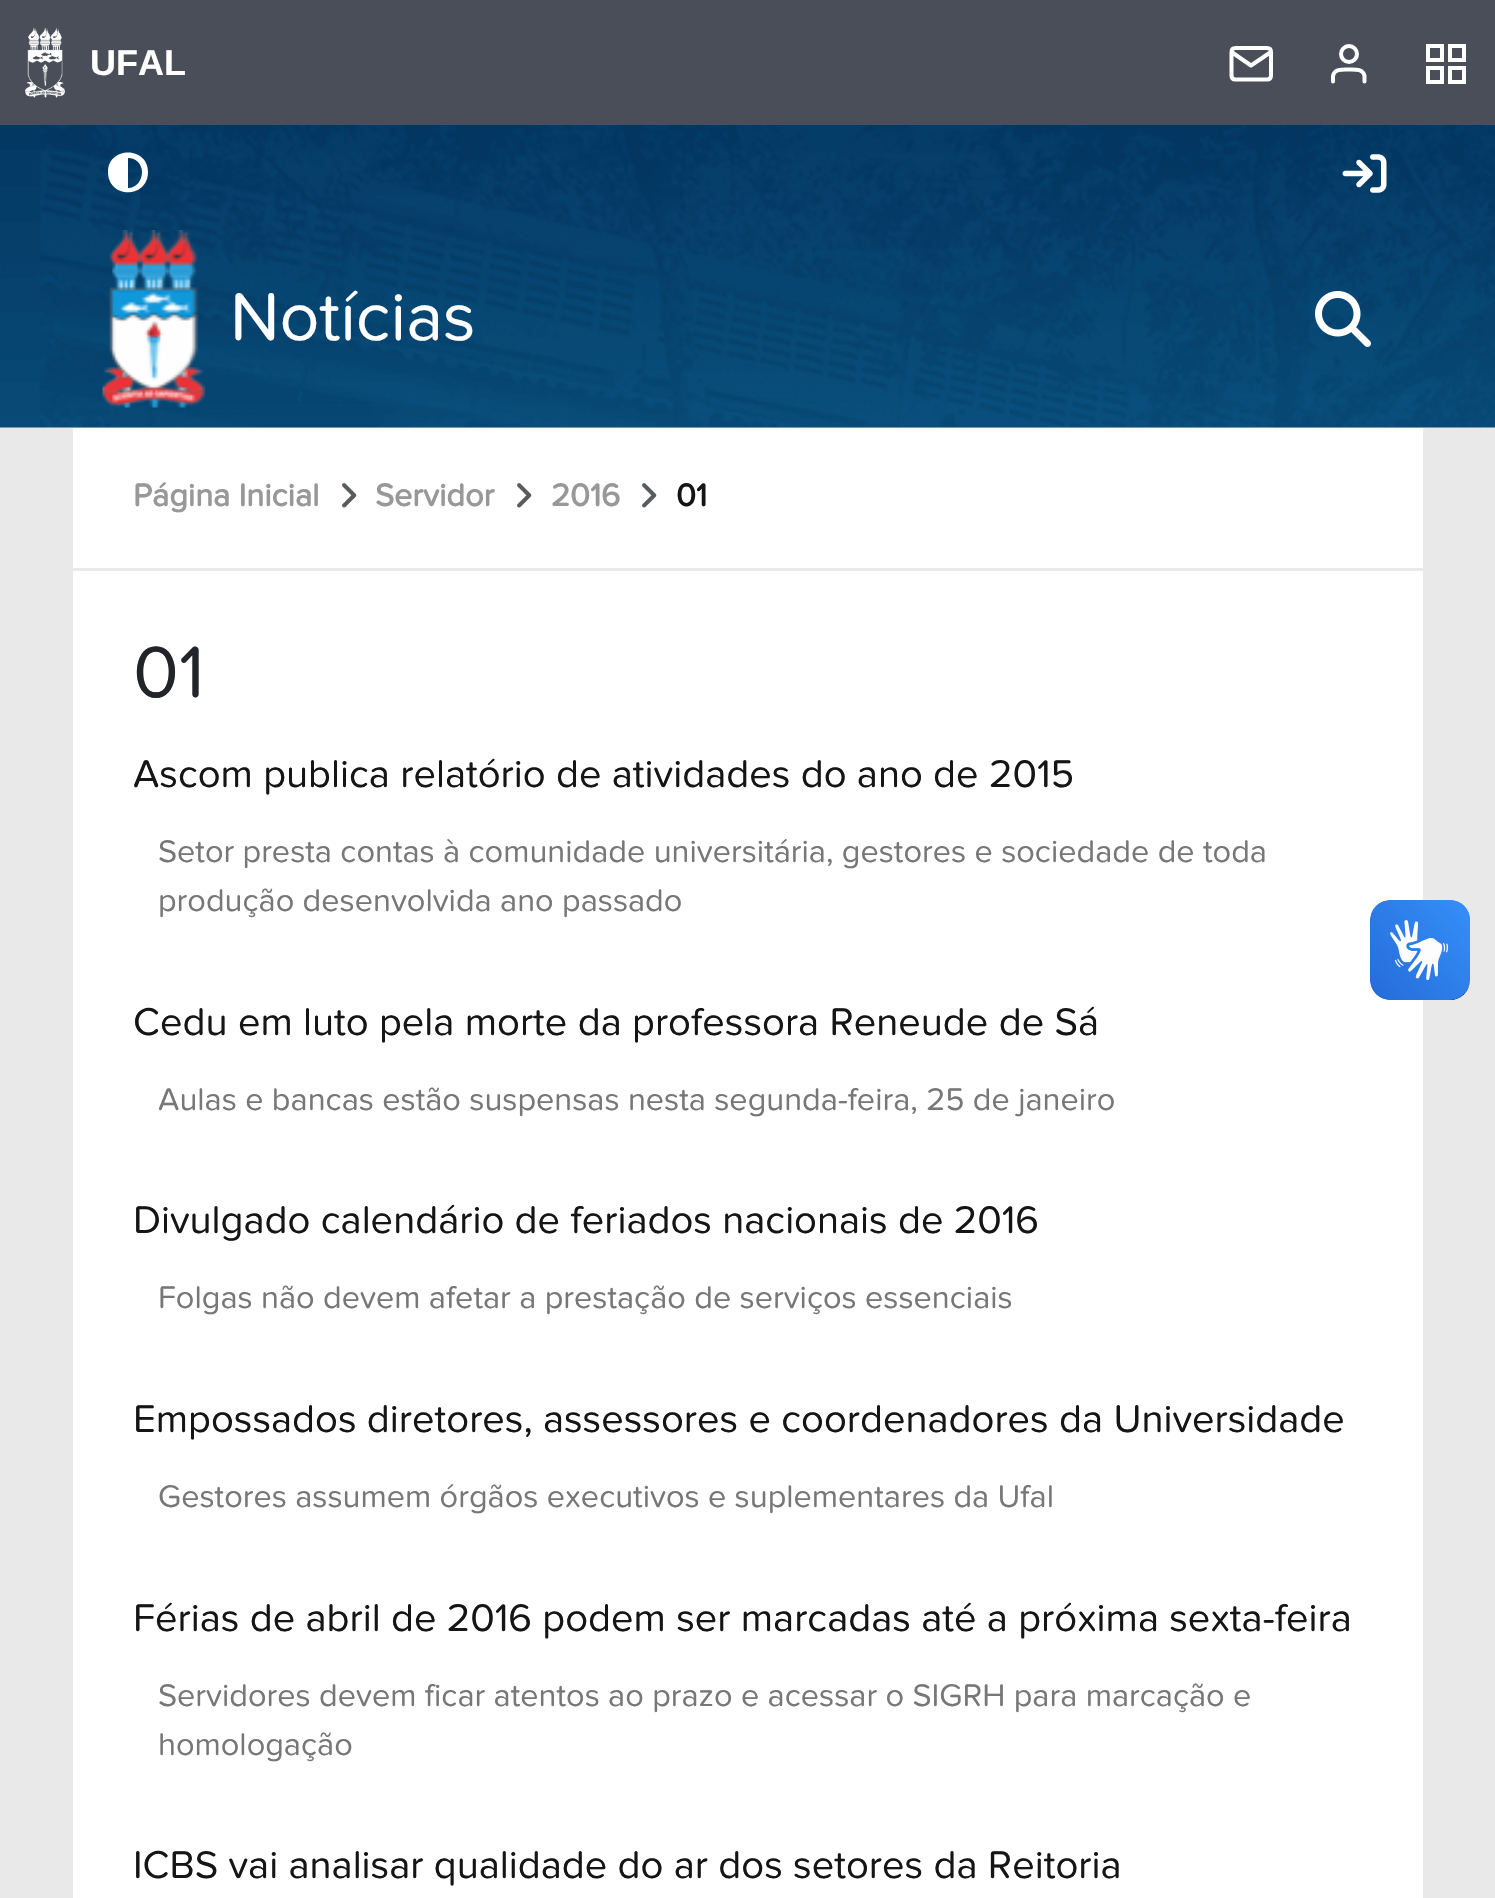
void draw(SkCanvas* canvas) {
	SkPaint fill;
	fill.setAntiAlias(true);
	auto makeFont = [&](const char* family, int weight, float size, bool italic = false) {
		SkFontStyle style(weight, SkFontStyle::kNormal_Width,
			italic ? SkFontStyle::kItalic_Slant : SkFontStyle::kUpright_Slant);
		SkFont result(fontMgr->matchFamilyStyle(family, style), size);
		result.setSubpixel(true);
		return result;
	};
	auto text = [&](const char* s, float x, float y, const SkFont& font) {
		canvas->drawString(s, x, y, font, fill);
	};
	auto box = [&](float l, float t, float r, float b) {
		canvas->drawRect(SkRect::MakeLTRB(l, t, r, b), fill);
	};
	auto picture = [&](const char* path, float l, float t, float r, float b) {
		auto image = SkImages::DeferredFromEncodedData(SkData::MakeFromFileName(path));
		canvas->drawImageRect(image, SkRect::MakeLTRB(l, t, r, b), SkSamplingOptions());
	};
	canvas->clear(0xFFE9E9E9);
	fill.setColor(0xFF4A4E59);
	box(0, 0, 1495, 125);
	picture("image0.png", 25, 27, 65, 98);
	fill.setStyle(SkPaint::kStroke_Style);
	fill.setStrokeWidth(4);
	fill.setStrokeCap(SkPaint::kRound_Cap);
	fill.setStrokeJoin(SkPaint::kRound_Join);
	fill.setColor(0xFFFFFFFF);
	canvas->drawPath(SkPathBuilder().moveTo(1235.5f, 48).lineTo(1267, 48).cubicTo(1269.5f, 48, 1271, 49.5f, 1271, 52).lineTo(1271, 75.5f).cubicTo(1271, 78, 1269.5f, 79.5f, 1267, 79.5f).lineTo(1235.5f, 79.5f).cubicTo(1233, 79.5f, 1231.5f, 78, 1231.5f, 75.5f).lineTo(1231.5f, 52).cubicTo(1231.5f, 49.5f, 1233, 48, 1235.5f, 48).close().moveTo(1271, 52).lineTo(1251, 65.5f).lineTo(1231.5f, 52).detach(), fill);
	canvas->drawPath(SkPathBuilder().moveTo(1364.5f, 81.5f).lineTo(1364.5f, 76).cubicTo(1363, 68.5f, 1354.5f, 69.5f, 1349, 69.5f).cubicTo(1343, 69.5f, 1334.5f, 68.5f, 1333, 76).lineTo(1333, 81.5f).detach(), fill);
	fill.setStrokeCap(SkPaint::kButt_Cap);
	fill.setStrokeJoin(SkPaint::kMiter_Join);
	canvas->drawCircle(1349, 54, 8, fill);
	canvas->drawRect(SkRect::MakeLTRB(1428, 46, 1442, 60), fill);
	canvas->drawRect(SkRect::MakeLTRB(1450, 46, 1464, 60), fill);
	canvas->drawRect(SkRect::MakeLTRB(1450, 68, 1464, 82), fill);
	canvas->drawRect(SkRect::MakeLTRB(1428, 68, 1442, 82), fill);
	picture("image1.png", 0, 125, 1495, 428);
	fill.setStyle(SkPaint::kFill_Style);
	canvas->drawPath(SkPathBuilder().moveTo(142, 172).cubicTo(142, 164, 136, 158, 128, 158).lineTo(128, 188).cubicTo(136, 188, 142, 181, 142, 172).close().moveTo(108, 172).cubicTo(108, 146, 148, 146, 148, 172).cubicTo(148, 199, 108, 199, 108, 172).close().detach(), fill);
	picture("image2.png", 1342, 154, 1387, 193);
	picture("image3.png", 102, 230, 205, 408);
	picture("image4.png", 1315, 291, 1371, 347);
	box(73, 428, 1423, 1898);
	fill.setColor(0xFFE9E9E9);
	box(73, 568, 1423, 571);
	picture("image5.png", 342, 483, 357, 508);
	picture("image5.png", 517, 483, 532, 508);
	picture("image5.png", 642, 483, 657, 508);
	picture("image6.png", 1370, 900, 1470, 1000);
	picture("image7.png", 1370, 900, 1470, 1000);
	auto font1 = makeFont("Liberation Sans", 700, 36);
	fill.setColor(0xFFFFFFFF);
	text("UFAL", 90, 75, font1);
	auto font2 = makeFont("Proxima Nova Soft", 400, 70);
	text("Notícias", 230, 340, font2);
	auto font3 = makeFont("Proxima Nova Soft", 700, 32.5f);
	fill.setColor(0xFF989898);
	text("Página Inicial", 133, 506, font3);
	text("Servidor", 375, 506, font3);
	text("2016", 551, 506, font3);
	fill.setColor(0xFF151515);
	text("01", 676, 506, font3);
	auto font4 = makeFont("Proxima Nova Soft", 400, 75);
	fill.setColor(0xFF212529);
	text("01", 133, 697, font4);
	auto font5 = makeFont("Proxima Nova Soft", 400, 40);
	fill.setColor(0xFF151515);
	text("Ascom publica relatório de atividades do ano de 2015", 133, 787, font5);
	auto font6 = makeFont("Proxima Nova Soft", 400, 32.5f);
	fill.setColor(0xFF777777);
	text("Setor presta contas à comunidade universitária, gestores e sociedade de toda", 158, 862, font6);
	text("produção desenvolvida ano passado", 158, 911, font6);
	fill.setColor(0xFF151515);
	text("Cedu em luto pela morte da professora Reneude de Sá", 133, 1035, font5);
	fill.setColor(0xFF777777);
	text("Aulas e bancas estão suspensas nesta segunda-feira, 25 de janeiro", 158, 1110, font6);
	fill.setColor(0xFF151515);
	text("Divulgado calendário de feriados nacionais de 2016", 133, 1233, font5);
	fill.setColor(0xFF777777);
	text("Folgas não devem afetar a prestação de serviços essenciais", 158, 1308, font6);
	fill.setColor(0xFF151515);
	text("Empossados diretores, assessores e coordenadores da Universidade", 133, 1432, font5);
	fill.setColor(0xFF777777);
	text("Gestores assumem órgãos executivos e suplementares da Ufal", 158, 1507, font6);
	fill.setColor(0xFF151515);
	text("Férias de abril de 2016 podem ser marcadas até a próxima sexta-feira", 133, 1631, font5);
	fill.setColor(0xFF777777);
	text("Servidores devem ficar atentos ao prazo e acessar o SIGRH para marcação e", 158, 1706, font6);
	text("homologação", 158, 1755, font6);
	fill.setColor(0xFF151515);
	text("ICBS vai analisar qualidade do ar dos setores da Reitoria", 133, 1878, font5);
}
